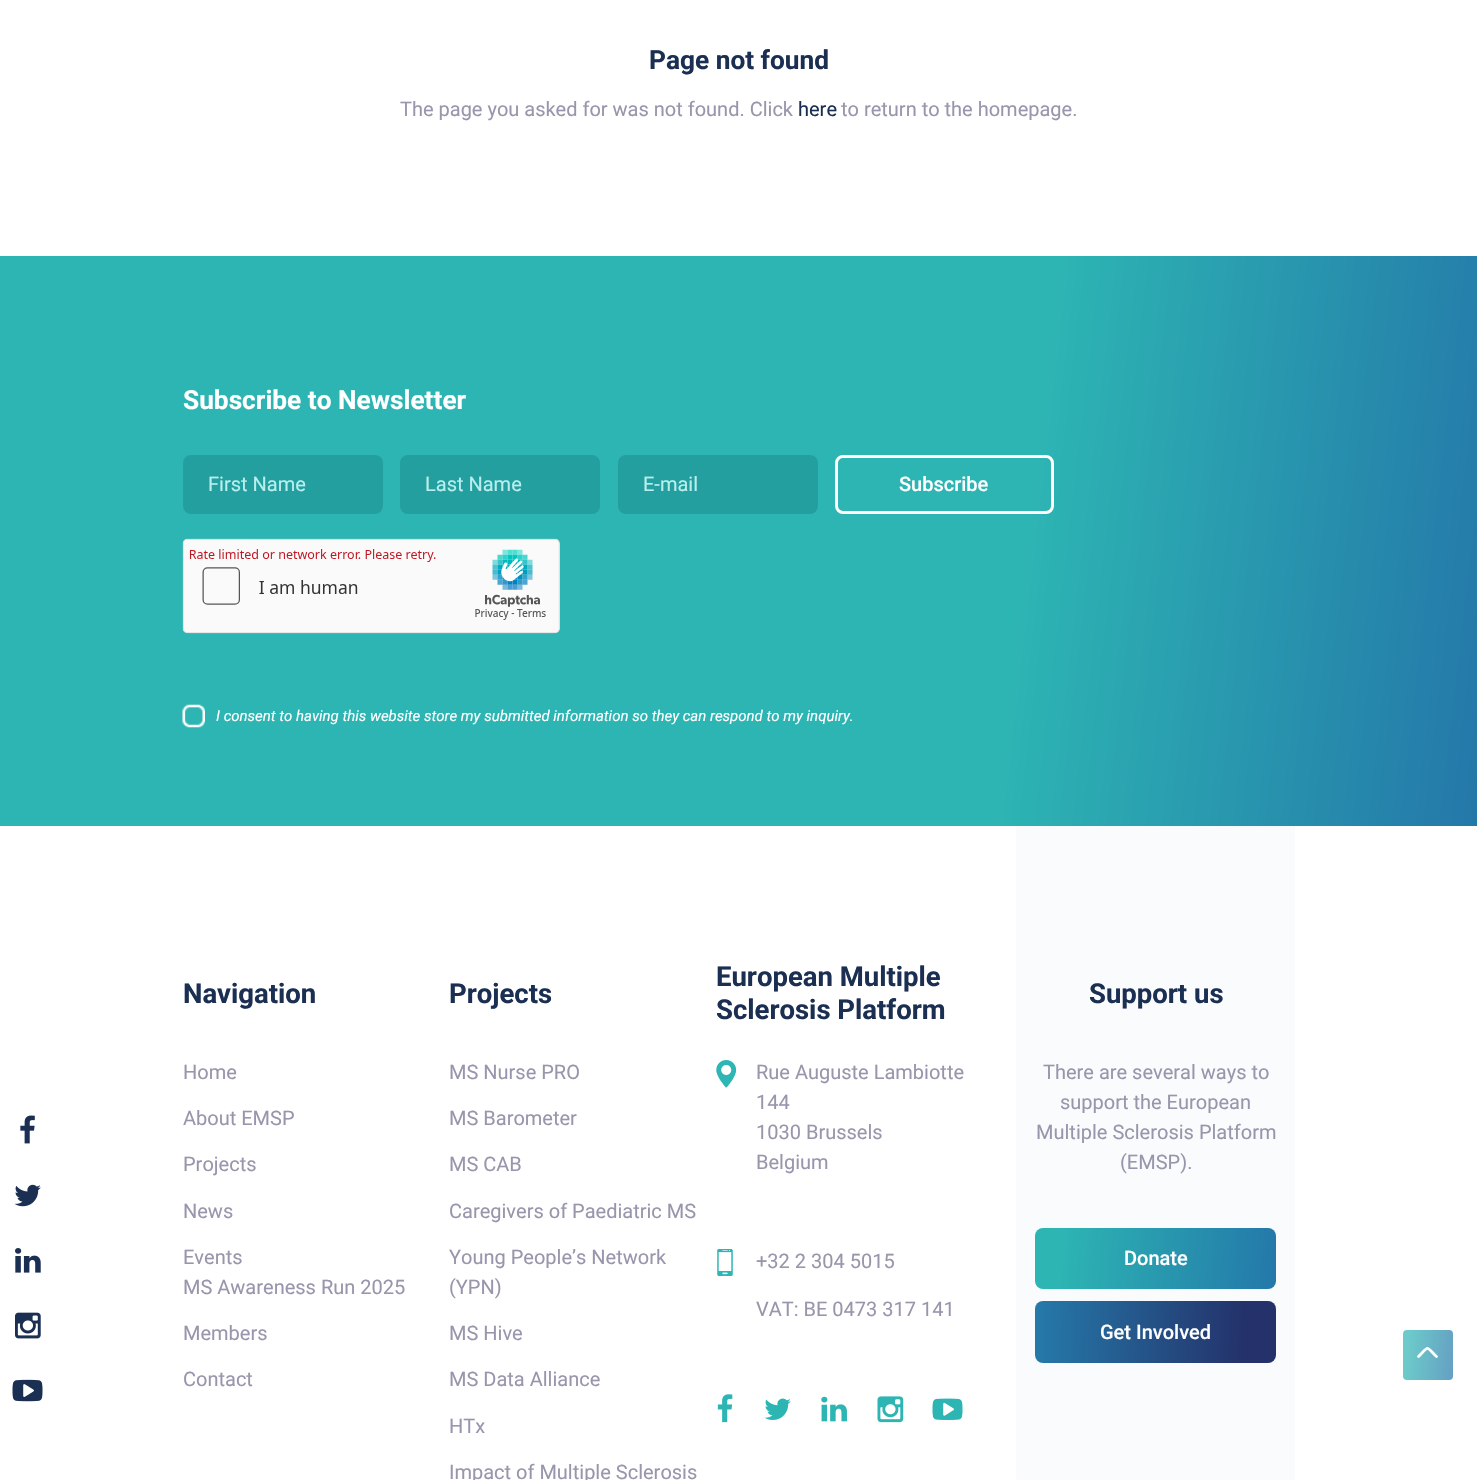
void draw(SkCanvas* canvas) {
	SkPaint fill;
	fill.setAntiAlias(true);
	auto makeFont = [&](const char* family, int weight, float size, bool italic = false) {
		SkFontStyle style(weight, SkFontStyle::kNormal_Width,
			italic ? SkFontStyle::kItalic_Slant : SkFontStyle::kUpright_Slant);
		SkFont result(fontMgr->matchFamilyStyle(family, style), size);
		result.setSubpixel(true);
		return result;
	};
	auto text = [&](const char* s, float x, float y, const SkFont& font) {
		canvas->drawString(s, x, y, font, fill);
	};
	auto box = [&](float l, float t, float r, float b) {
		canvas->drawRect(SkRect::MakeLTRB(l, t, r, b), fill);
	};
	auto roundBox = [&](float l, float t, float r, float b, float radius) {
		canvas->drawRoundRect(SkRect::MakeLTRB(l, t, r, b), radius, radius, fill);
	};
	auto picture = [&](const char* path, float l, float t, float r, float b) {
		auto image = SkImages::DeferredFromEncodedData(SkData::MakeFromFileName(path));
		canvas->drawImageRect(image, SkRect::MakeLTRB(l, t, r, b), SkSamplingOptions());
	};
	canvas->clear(0xFFFFFFFF);
	{
		const SkColor colors[] = {0xFF2DB5B3, 0xFF226AA7};
		const float stops[] = {0.64f, 1};
		const SkPoint ends[] = {{-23, 452}, {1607, 643}};
		fill.setShader(SkGradientShader::MakeLinear(ends, colors, stops, 2, SkTileMode::kClamp));
		fill.setAlpha(255);
	}
	box(0, 256, 1477, 826);
	fill.setShader(nullptr);
	fill.setColor(0xFF229F9E);
	roundBox(183, 455, 383, 514, 8);
	roundBox(400, 455, 600, 514, 8);
	roundBox(618, 455, 818, 514, 8);
	picture("image0.png", 182, 704, 205, 728);
	fill.setStyle(SkPaint::kStroke_Style);
	fill.setStrokeWidth(3);
	fill.setColor(0xFFFFFFFF);
	canvas->drawRoundRect(SkRect::MakeLTRB(836.5f, 456.5f, 1052.5f, 512.5f), 6.5f, 6.5f, fill);
	picture("image1.png", 182, 538, 560, 634);
	picture("image2.png", 20, 1115, 35, 1144);
	picture("image3.png", 14, 1184, 41, 1207);
	picture("image4.png", 15, 1248, 41, 1273);
	picture("image5.png", 15, 1312, 41, 1339);
	picture("image6.png", 12, 1379, 43, 1402);
	picture("image7.png", 716, 1060, 736, 1088);
	picture("image8.png", 717, 1249, 733, 1276);
	picture("image9.png", 717, 1394, 733, 1423);
	picture("image10.png", 764, 1398, 791, 1420);
	picture("image11.png", 821, 1396, 847, 1422);
	picture("image12.png", 877, 1396, 904, 1423);
	picture("image13.png", 932, 1398, 963, 1420);
	fill.setStyle(SkPaint::kFill_Style);
	fill.setColor(0xFFF9FBFC);
	box(1016, 826, 1295, 1480);
	{
		const SkColor colors[] = {0xFF2DB5B3, 0xFF2581AB, 0xFF226AA7};
		const float stops[] = {0.09f, 0.72f, 1};
		const SkPoint ends[] = {{1033, 1247}, {1327, 1274}};
		fill.setShader(SkGradientShader::MakeLinear(ends, colors, stops, 3, SkTileMode::kClamp));
		fill.setAlpha(255);
	}
	roundBox(1035, 1228, 1276, 1289, 8);
	{
		const SkColor colors[] = {0xFF257AAA, 0xFF24316A};
		const float stops[] = {0, 0.87f};
		const SkPoint ends[] = {{1035, 1330}, {1277, 1334}};
		fill.setShader(SkGradientShader::MakeLinear(ends, colors, stops, 2, SkTileMode::kClamp));
		fill.setAlpha(255);
	}
	roundBox(1035, 1301, 1276, 1363, 8);
	{
		const SkColor colors[] = {0xFF6CCBCA, 0xFF66A7C4, 0xFF6497C1};
		const float stops[] = {0.09f, 0.72f, 1};
		const SkPoint ends[] = {{1400, 1352}, {1465, 1359}};
		fill.setShader(SkGradientShader::MakeLinear(ends, colors, stops, 3, SkTileMode::kClamp));
		fill.setAlpha(255);
	}
	roundBox(1403, 1330, 1453, 1380, 4);
	fill.setStyle(SkPaint::kStroke_Style);
	fill.setStrokeWidth(2.8f);
	fill.setStrokeCap(SkPaint::kRound_Cap);
	fill.setStrokeJoin(SkPaint::kBevel_Join);
	fill.setShader(nullptr);
	fill.setColor(0xFFFFFFFF);
	canvas->drawPath(SkPathBuilder().moveTo(1436.5f, 1356.5f).cubicTo(1425.5f, 1346, 1429.5f, 1345.5f, 1418.5f, 1356.5f).detach(), fill);
	auto font1 = makeFont("Roboto", 700, 26.25f);
	fill.setStyle(SkPaint::kFill_Style);
	fill.setColor(0xFF1B2F52);
	text("Page not found", 649, 69, font1);
	auto font2 = makeFont("Roboto", 400, 20);
	fill.setColor(0xFF9796AC);
	text("The page you asked for was not found. Click", 400, 116, font2);
	fill.setColor(0xFF1B2F52);
	text("here", 798, 116, font2);
	fill.setColor(0xFF9796AC);
	text("to return to the homepage.", 841, 116, font2);
	fill.setColor(0xFFFFFFFF);
	text("Subscribe to Newsletter", 183, 409, font1);
	fill.setColor(0xFFB9EEED);
	text("First Name", 208, 491, font2);
	text("Last Name", 425, 491, font2);
	text("E-mail", 643, 491, font2);
	auto font3 = makeFont("Roboto", 400, 15, true);
	fill.setColor(0xFFFFFFFF);
	text("I consent to having this website store my submitted information so they can respond to my inquiry.", 216, 721, font3);
	auto font4 = makeFont("Roboto", 500, 20);
	text("Subscribe", 899, 491, font4);
	auto font5 = makeFont("Roboto", 700, 27.5f);
	fill.setColor(0xFF1B2F52);
	text("Navigation", 183, 1003, font5);
	fill.setColor(0xFF9796AC);
	text("Home", 183, 1079, font2);
	text("About EMSP", 183, 1125, font2);
	text("Projects", 183, 1171, font2);
	text("News", 183, 1218, font2);
	text("Events", 183, 1264, font2);
	text("MS Awareness Run 2025", 183, 1294, font2);
	text("Members", 183, 1340, font2);
	text("Contact", 183, 1386, font2);
	fill.setColor(0xFF1B2F52);
	text("Projects", 449, 1003, font5);
	fill.setColor(0xFF9796AC);
	text("MS Nurse PRO", 449, 1079, font2);
	text("MS Barometer", 449, 1125, font2);
	text("MS CAB", 449, 1171, font2);
	text("Caregivers of Paediatric MS", 449, 1218, font2);
	text("Young People’s Network", 449, 1264, font2);
	text("(YPN)", 449, 1294, font2);
	text("MS Hive", 449, 1340, font2);
	text("MS Data Alliance", 449, 1386, font2);
	text("HTx", 449, 1433, font2);
	text("Impact of Multiple Sclerosis", 449, 1479, font2);
	fill.setColor(0xFF1B2F52);
	text("European Multiple", 716, 986, font5);
	text("Sclerosis Platform", 716, 1019, font5);
	fill.setColor(0xFF9796AC);
	text("Rue Auguste Lambiotte", 756, 1079, font2);
	text("144", 756, 1109, font2);
	text("1030 Brussels", 756, 1139, font2);
	text("Belgium", 756, 1169, font2);
	text("+32 2 304 5015", 756, 1268, font2);
	text("VAT: BE 0473 317 141", 756, 1316, font2);
	fill.setColor(0xFF1B2F52);
	text("Support us", 1089, 1003, font5);
	fill.setColor(0xFF9796AC);
	text("There are several ways to", 1043, 1079, font2);
	text("support the European", 1060, 1109, font2);
	text("Multiple Sclerosis Platform", 1036, 1139, font2);
	text("(EMSP).", 1120, 1169, font2);
	fill.setColor(0xFFFFFFFF);
	text("Donate", 1124, 1265, font4);
	text("Get Involved", 1100, 1339, font4);
}
